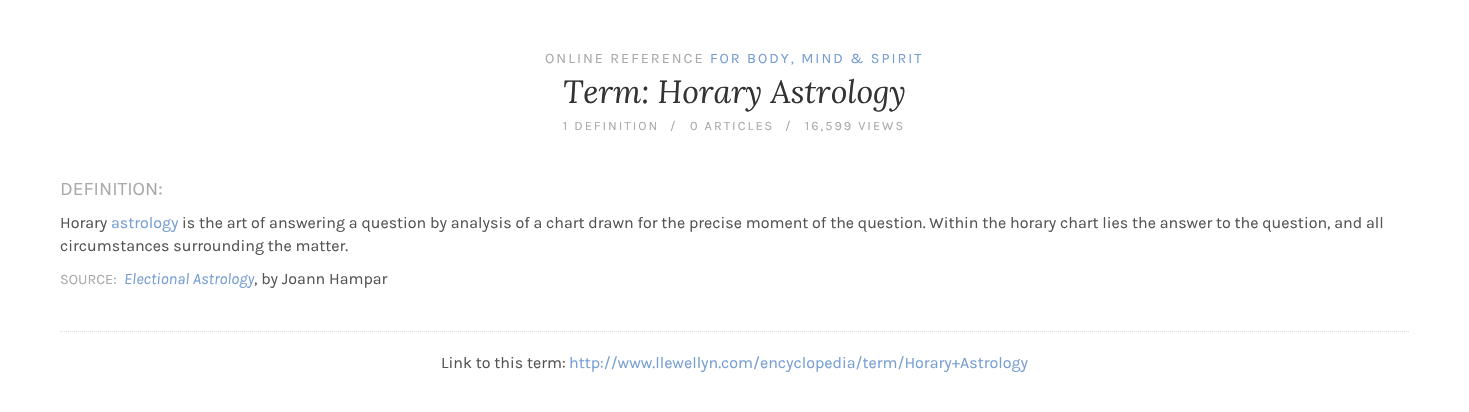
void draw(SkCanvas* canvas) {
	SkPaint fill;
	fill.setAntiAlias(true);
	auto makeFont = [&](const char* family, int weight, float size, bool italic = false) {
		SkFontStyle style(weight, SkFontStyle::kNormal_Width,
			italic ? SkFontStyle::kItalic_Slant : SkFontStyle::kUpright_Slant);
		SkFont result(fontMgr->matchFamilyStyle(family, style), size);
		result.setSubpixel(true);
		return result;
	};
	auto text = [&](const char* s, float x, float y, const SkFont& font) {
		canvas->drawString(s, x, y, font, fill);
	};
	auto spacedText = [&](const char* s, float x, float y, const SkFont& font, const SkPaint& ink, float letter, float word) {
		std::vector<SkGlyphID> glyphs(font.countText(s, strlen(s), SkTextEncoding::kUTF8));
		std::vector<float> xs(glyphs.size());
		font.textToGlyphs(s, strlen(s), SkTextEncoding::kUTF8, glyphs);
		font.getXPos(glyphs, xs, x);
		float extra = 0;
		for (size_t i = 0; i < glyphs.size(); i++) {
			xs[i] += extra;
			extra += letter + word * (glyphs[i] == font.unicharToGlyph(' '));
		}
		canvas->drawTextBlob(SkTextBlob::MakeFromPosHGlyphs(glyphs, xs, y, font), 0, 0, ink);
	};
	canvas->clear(0xFFFFFFFF);
	fill.setStyle(SkPaint::kStroke_Style);
	fill.setStrokeWidth(1);
	fill.setColor(0xFFDCDCDC);
	fill.setPathEffect(SkDashPathEffect::Make({{1, 1}}, 0));
	canvas->drawPath(SkPathBuilder().moveTo(60, 331.5f).lineTo(1409, 331.5f).detach(), fill);
	fill.setPathEffect(nullptr);
	auto font1 = makeFont("Karla", 400, 14.4f);
	fill.setStyle(SkPaint::kFill_Style);
	fill.setColor(0xFFAAAAAA);
	spacedText("ONLINE REFERENCE", 545, 63, font1, fill, 2, 0);
	fill.setColor(0xFF769ED3);
	spacedText("FOR BODY, MIND & SPIRIT", 710, 63, font1, fill, 2, 0);
	auto font2 = makeFont("Lora", 400, 32, true);
	fill.setColor(0xFF333333);
	text("Term: Horary Astrology", 563, 103, font2);
	auto font3 = makeFont("Karla", 400, 12.75f);
	fill.setColor(0xFFAAAAAA);
	spacedText("1 DEFINITION", 563, 130, font3, fill, 2, 0);
	spacedText("/", 670, 130, font3, fill, 2, 0);
	spacedText("0 ARTICLES", 690, 130, font3, fill, 2, 0);
	spacedText("/", 785, 130, font3, fill, 2, 0);
	spacedText("16,599 VIEWS", 805, 130, font3, fill, 2, 0);
	auto font4 = makeFont("Karla", 400, 19.25f);
	text("DEFINITION:", 60, 195, font4);
	auto font5 = makeFont("Karla", 400, 16);
	fill.setColor(0xFF525452);
	text("Horary", 60, 228, font5);
	fill.setColor(0xFF769ED3);
	text("astrology", 111, 228, font5);
	fill.setColor(0xFF525452);
	text("is the art of answering a question by analysis of a chart drawn for the precise moment of the question. Within the horary chart lies the answer to the question, and all", 182, 228, font5);
	text("circumstances surrounding the matter.", 60, 251, font5);
	fill.setColor(0xFFAAAAAA);
	text("SOURCE:", 60, 284, font1);
	auto font6 = makeFont("Karla", 400, 16, true);
	fill.setColor(0xFF769ED3);
	text("Electional Astrology", 124, 284, font6);
	fill.setColor(0xFF525452);
	text(", by Joann Hampar", 254, 284, font5);
	text("Link to this term:", 441, 368, font5);
	fill.setColor(0xFF769ED3);
	text("http://www.llewellyn.com/encyclopedia/term/Horary+Astrology", 569, 368, font5);
}
